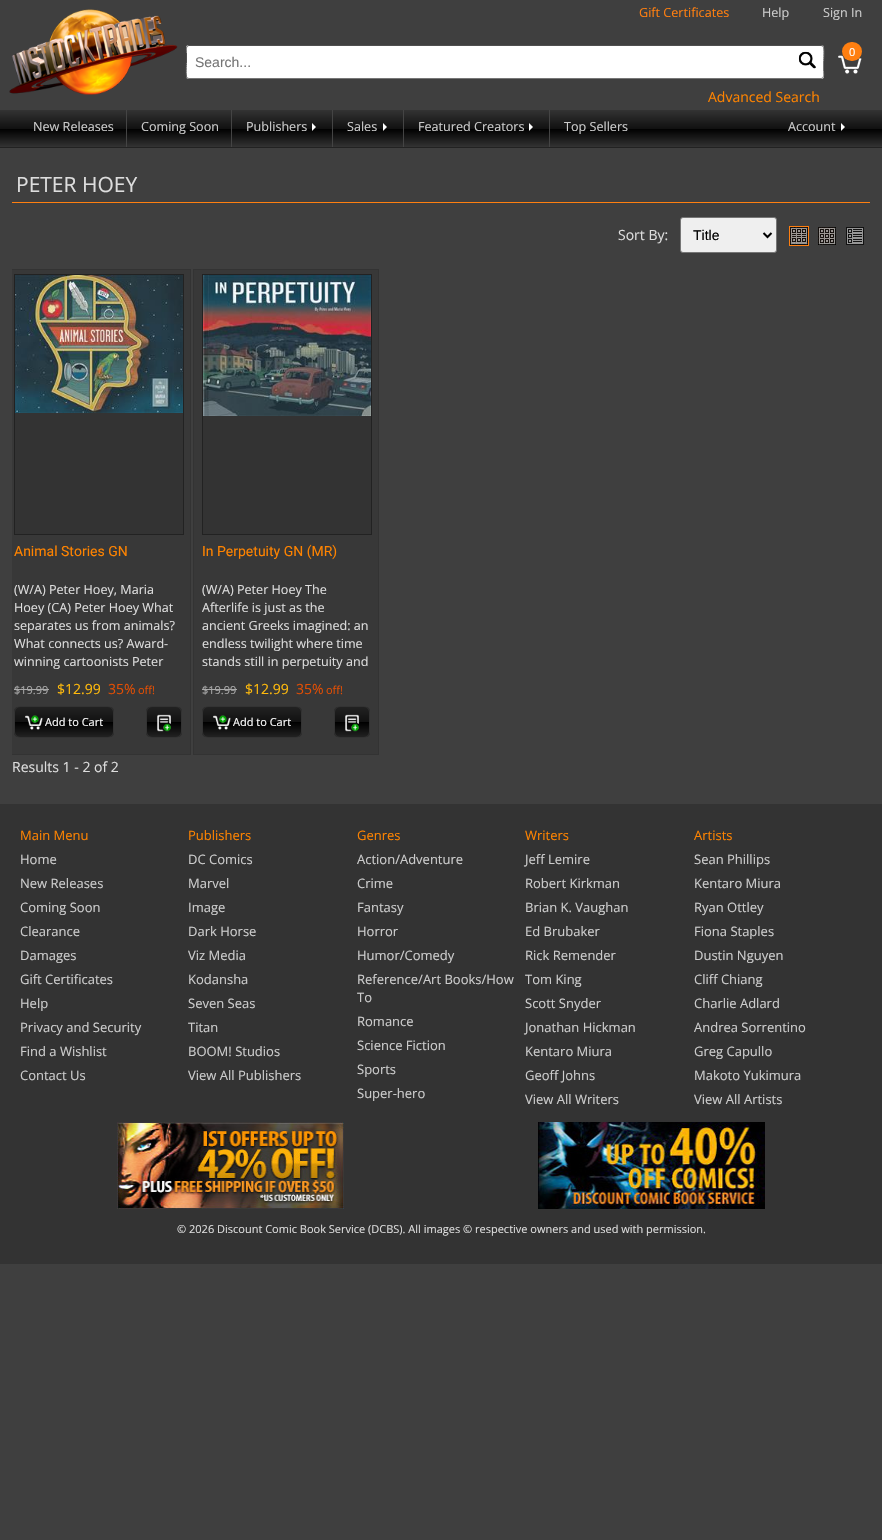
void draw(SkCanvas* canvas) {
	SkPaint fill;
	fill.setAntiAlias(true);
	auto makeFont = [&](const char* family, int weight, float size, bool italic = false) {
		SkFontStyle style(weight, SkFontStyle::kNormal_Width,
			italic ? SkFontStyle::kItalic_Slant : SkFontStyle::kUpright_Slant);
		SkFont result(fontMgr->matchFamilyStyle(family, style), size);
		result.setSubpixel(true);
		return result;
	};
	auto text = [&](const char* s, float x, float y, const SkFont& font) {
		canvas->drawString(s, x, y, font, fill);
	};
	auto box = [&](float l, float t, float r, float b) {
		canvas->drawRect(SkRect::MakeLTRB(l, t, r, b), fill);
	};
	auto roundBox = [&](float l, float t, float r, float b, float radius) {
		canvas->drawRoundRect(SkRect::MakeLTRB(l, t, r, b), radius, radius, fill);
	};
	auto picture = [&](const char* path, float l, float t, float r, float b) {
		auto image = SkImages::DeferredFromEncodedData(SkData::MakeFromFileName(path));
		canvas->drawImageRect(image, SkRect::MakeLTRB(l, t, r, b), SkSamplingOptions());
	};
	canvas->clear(0xFF3F3F3F);
	picture("image0.png", 9, 9, 178, 95);
	picture("image1.png", 838, 55, 862, 74);
	fill.setColor(0xFFFF7F10);
	roundBox(842, 42, 862, 61, 9.5f);
	fill.setColor(0xFFFFFFFF);
	roundBox(186, 45, 824, 79, 3);
	fill.setStyle(SkPaint::kStroke_Style);
	fill.setStrokeWidth(1);
	fill.setColor(0xFF767676);
	canvas->drawPath(SkPathBuilder().moveTo(823, 46).cubicTo(824.5f, 48, 823.5f, 59.5f, 823.5f, 62).lineTo(823.5f, 71.5f).cubicTo(823.5f, 73, 824.5f, 78.5f, 821, 78.5f).lineTo(189, 78.5f).lineTo(187, 78).detach(), fill);
	fill.setColor(0xFF4F4F4F);
	canvas->drawPath(SkPathBuilder().moveTo(187, 78).cubicTo(185.5f, 76, 186.5f, 64.5f, 186.5f, 62).lineTo(186.5f, 52.5f).cubicTo(186.5f, 51, 185.5f, 45.5f, 189, 45.5f).lineTo(821, 45.5f).lineTo(823, 46).detach(), fill);
	picture("image2.png", 798, 51, 816, 69);
	fill.setStyle(SkPaint::kFill_Style);
	{
		const SkColor colors[] = {0xFF333333, 0xFF111111, 0xFF000000, 0xFF333333};
		const float stops[] = {0, 0.5f, 0.51f, 1};
		const SkPoint ends[] = {{441, 110}, {441, 147}};
		fill.setShader(SkGradientShader::MakeLinear(ends, colors, stops, 4, SkTileMode::kClamp));
		fill.setAlpha(255);
	}
	box(0, 110, 882, 147);
	fill.setShader(nullptr);
	fill.setColor(0xFF222222);
	box(0, 147, 882, 148);
	fill.setColor(0xFF444444);
	box(126, 110, 127, 147);
	box(231, 110, 232, 147);
	box(332, 110, 333, 147);
	fill.setColor(0xFFFFFFFF);
	canvas->drawPath(SkPathBuilder().moveTo(312, 131).lineTo(312, 123).lineTo(316, 127).close().detach(), fill);
	fill.setColor(0xFF444444);
	box(403, 110, 404, 147);
	fill.setColor(0xFFFFFFFF);
	canvas->drawPath(SkPathBuilder().moveTo(383, 131).lineTo(383, 123).lineTo(387, 127).close().detach(), fill);
	fill.setColor(0xFF444444);
	box(549, 110, 550, 147);
	fill.setColor(0xFFFFFFFF);
	canvas->drawPath(SkPathBuilder().moveTo(529, 131).lineTo(529, 123).lineTo(533, 127).close().detach(), fill);
	canvas->drawPath(SkPathBuilder().moveTo(841, 131).lineTo(841, 123).lineTo(845, 127).close().detach(), fill);
	fill.setColor(0xFFFF7F10);
	box(12, 202, 870, 203);
	fill.setColor(0xFFEFEFEF);
	canvas->drawRoundRect(SkRect::MakeLTRB(680.5f, 217.5f, 776.5f, 252.5f), 2.5f, 2.5f, fill);
	fill.setStyle(SkPaint::kStroke_Style);
	fill.setColor(0xFF767676);
	canvas->drawRoundRect(SkRect::MakeLTRB(680.5f, 217.5f, 776.5f, 252.5f), 2.5f, 2.5f, fill);
	fill.setStrokeWidth(2);
	fill.setColor(0xFF000000);
	canvas->drawPath(SkPathBuilder().moveTo(763.5f, 233).lineTo(767.5f, 237).lineTo(771.5f, 233).detach(), fill);
	fill.setStrokeWidth(1);
	fill.setColor(0xFFFF7F10);
	canvas->drawRect(SkRect::MakeLTRB(789.5f, 226.5f, 808.5f, 245.5f), fill);
	picture("image3.png", 790, 227, 808, 245);
	picture("image4.png", 818, 227, 836, 245);
	picture("image5.png", 846, 227, 864, 245);
	fill.setStyle(SkPaint::kFill_Style);
	fill.setColor(0xFF383838);
	box(12, 270, 190, 754);
	canvas->save();
	canvas->clipRect(SkRect::MakeLTRB(12, 156, 870, 776));
	fill.setStyle(SkPaint::kStroke_Style);
	fill.setColor(0xFF333333);
	canvas->drawRect(SkRect::MakeLTRB(5.5f, 269.5f, 190.5f, 754.5f), fill);
	canvas->restore();
	fill.setStyle(SkPaint::kFill_Style);
	box(15, 413, 183, 534);
	fill.setStyle(SkPaint::kStroke_Style);
	fill.setColor(0xFF222222);
	canvas->drawRect(SkRect::MakeLTRB(14.5f, 274.5f, 183.5f, 534.5f), fill);
	picture("image6.png", 15, 275, 183, 413);
	fill.setStyle(SkPaint::kFill_Style);
	fill.setColor(0xFFAAAAAA);
	box(14, 689, 49, 690);
	canvas->save();
	canvas->clipPath(SkPathBuilder().moveTo(20, 706).lineTo(108, 706).cubicTo(111.5f, 706, 114, 708.5f, 114, 712).lineTo(114, 732).cubicTo(114, 735.5f, 111.5f, 738, 108, 738).lineTo(20, 738).cubicTo(16.5f, 738, 14, 735.5f, 14, 732).lineTo(14, 712).cubicTo(14, 708.5f, 16.5f, 706, 20, 706).close().detach(), true);
	{
		const SkColor colors[] = {0xFF222222, 0xFF111111, 0xFF000000, 0xFF222222};
		const float stops[] = {0, 0.5f, 0.51f, 1};
		const SkPoint ends[] = {{64, 707}, {64, 737}};
		fill.setShader(SkGradientShader::MakeLinear(ends, colors, stops, 4, SkTileMode::kClamp));
		fill.setAlpha(255);
	}
	box(14, 707, 114, 737);
	canvas->restore();
	fill.setStyle(SkPaint::kStroke_Style);
	fill.setShader(nullptr);
	fill.setColor(0xFF333333);
	canvas->drawRoundRect(SkRect::MakeLTRB(14.5f, 706.5f, 113.5f, 737.5f), 5.5f, 5.5f, fill);
	picture("image7.png", 25, 715, 43, 730);
	canvas->save();
	canvas->clipPath(SkPathBuilder().moveTo(152, 706).lineTo(176, 706).cubicTo(179.5f, 706, 182, 708.5f, 182, 712).lineTo(182, 732).cubicTo(182, 735.5f, 179.5f, 738, 176, 738).lineTo(152, 738).cubicTo(148.5f, 738, 146, 735.5f, 146, 732).lineTo(146, 712).cubicTo(146, 708.5f, 148.5f, 706, 152, 706).close().detach(), true);
	fill.setStyle(SkPaint::kFill_Style);
	{
		const SkColor colors[] = {0xFF222222, 0xFF111111, 0xFF000000, 0xFF222222};
		const float stops[] = {0, 0.5f, 0.51f, 1};
		const SkPoint ends[] = {{164, 707}, {164, 737}};
		fill.setShader(SkGradientShader::MakeLinear(ends, colors, stops, 4, SkTileMode::kClamp));
		fill.setAlpha(255);
	}
	box(146, 707, 182, 737);
	canvas->restore();
	fill.setStyle(SkPaint::kStroke_Style);
	fill.setShader(nullptr);
	fill.setColor(0xFF333333);
	canvas->drawRoundRect(SkRect::MakeLTRB(146.5f, 706.5f, 181.5f, 737.5f), 5.5f, 5.5f, fill);
	picture("image8.png", 157, 714, 171, 732);
	fill.setStyle(SkPaint::kFill_Style);
	fill.setColor(0xFF383838);
	canvas->drawRect(SkRect::MakeLTRB(193.5f, 269.5f, 378.5f, 754.5f), fill);
	fill.setStyle(SkPaint::kStroke_Style);
	fill.setColor(0xFF333333);
	canvas->drawRect(SkRect::MakeLTRB(193.5f, 269.5f, 378.5f, 754.5f), fill);
	fill.setStyle(SkPaint::kFill_Style);
	box(203, 416, 371, 534);
	fill.setStyle(SkPaint::kStroke_Style);
	fill.setColor(0xFF222222);
	canvas->drawRect(SkRect::MakeLTRB(202.5f, 274.5f, 371.5f, 534.5f), fill);
	picture("image9.png", 203, 275, 371, 416);
	fill.setStyle(SkPaint::kFill_Style);
	fill.setColor(0xFFAAAAAA);
	box(202, 689, 237, 690);
	canvas->save();
	canvas->clipPath(SkPathBuilder().moveTo(208, 706).lineTo(296, 706).cubicTo(299.5f, 706, 302, 708.5f, 302, 712).lineTo(302, 732).cubicTo(302, 735.5f, 299.5f, 738, 296, 738).lineTo(208, 738).cubicTo(204.5f, 738, 202, 735.5f, 202, 732).lineTo(202, 712).cubicTo(202, 708.5f, 204.5f, 706, 208, 706).close().detach(), true);
	{
		const SkColor colors[] = {0xFF222222, 0xFF111111, 0xFF000000, 0xFF222222};
		const float stops[] = {0, 0.5f, 0.51f, 1};
		const SkPoint ends[] = {{252, 707}, {252, 737}};
		fill.setShader(SkGradientShader::MakeLinear(ends, colors, stops, 4, SkTileMode::kClamp));
		fill.setAlpha(255);
	}
	box(202, 707, 302, 737);
	canvas->restore();
	fill.setStyle(SkPaint::kStroke_Style);
	fill.setShader(nullptr);
	fill.setColor(0xFF333333);
	canvas->drawRoundRect(SkRect::MakeLTRB(202.5f, 706.5f, 301.5f, 737.5f), 5.5f, 5.5f, fill);
	picture("image10.png", 213, 715, 231, 730);
	canvas->save();
	canvas->clipPath(SkPathBuilder().moveTo(340, 706).lineTo(364, 706).cubicTo(367.5f, 706, 370, 708.5f, 370, 712).lineTo(370, 732).cubicTo(370, 735.5f, 367.5f, 738, 364, 738).lineTo(340, 738).cubicTo(336.5f, 738, 334, 735.5f, 334, 732).lineTo(334, 712).cubicTo(334, 708.5f, 336.5f, 706, 340, 706).close().detach(), true);
	fill.setStyle(SkPaint::kFill_Style);
	{
		const SkColor colors[] = {0xFF222222, 0xFF111111, 0xFF000000, 0xFF222222};
		const float stops[] = {0, 0.5f, 0.51f, 1};
		const SkPoint ends[] = {{352, 707}, {352, 737}};
		fill.setShader(SkGradientShader::MakeLinear(ends, colors, stops, 4, SkTileMode::kClamp));
		fill.setAlpha(255);
	}
	box(334, 707, 370, 737);
	canvas->restore();
	fill.setStyle(SkPaint::kStroke_Style);
	fill.setShader(nullptr);
	fill.setColor(0xFF333333);
	canvas->drawRoundRect(SkRect::MakeLTRB(334.5f, 706.5f, 369.5f, 737.5f), 5.5f, 5.5f, fill);
	picture("image11.png", 345, 714, 359, 732);
	fill.setStyle(SkPaint::kFill_Style);
	box(0, 804, 882, 1264);
	picture("image12.png", 117, 1122, 344, 1209);
	picture("image13.png", 538, 1122, 765, 1209);
	auto font1 = makeFont("Open Sans", 400, 12.6f);
	fill.setColor(0xFFFF7F10);
	text("Gift Certificates", 639, 17, font1);
	fill.setColor(0xFFCCCCCC);
	text("Help", 762, 17, font1);
	text("Sign In", 823, 17, font1);
	auto font2 = makeFont("Open Sans", 400, 11);
	fill.setColor(0xFFFFFFFF);
	text("0", 849, 56, font2);
	auto font3 = makeFont("Liberation Sans", 400, 14);
	fill.setColor(0xFF757575);
	text("Search...", 195, 67, font3);
	auto font4 = makeFont("Open Sans", 400, 14);
	fill.setColor(0xFFFE8300);
	text("Advanced Search", 708, 102, font4);
	fill.setColor(0xFFCCCCCC);
	text("New Releases", 33, 131, font1);
	text("Coming Soon", 141, 131, font1);
	text("Publishers", 246, 131, font1);
	text("Sales", 347, 131, font1);
	text("Featured Creators", 418, 131, font1);
	text("Top Sellers", 564, 131, font1);
	text("Account", 788, 131, font1);
	auto font5 = makeFont("Open Sans", 400, 21);
	fill.setColor(0xFFDDDDDD);
	text("PETER HOEY", 16, 192, font5);
	text("Sort By:", 618, 240, font4);
	fill.setColor(0xFF000000);
	text("Title", 693, 240, font3);
	auto font6 = makeFont("Roboto", 400, 14);
	fill.setColor(0xFFFE8300);
	text("Animal Stories GN", 14, 556, font6);
	fill.setColor(0xFFDDDDDD);
	text("(W/A) Peter Hoey, Maria", 14, 594, font1);
	text("Hoey (CA) Peter Hoey What", 14, 612, font1);
	text("separates us from animals?", 14, 630, font1);
	text("What connects us? Award-", 14, 648, font1);
	text("winning cartoonists Peter", 14, 666, font1);
	fill.setColor(0xFFAAAAAA);
	text("$19.99", 14, 694, font2);
	fill.setColor(0xFFFFBA0C);
	text("$12.99", 57, 694, font4);
	fill.setColor(0xFFE34E03);
	text("35%", 108, 694, font4);
	text("off!", 138, 694, font2);
	fill.setColor(0xFFFFFFFF);
	text("Add to Cart", 45, 726, font2);
	fill.setColor(0xFFFE8300);
	text("In Perpetuity GN (MR)", 202, 556, font6);
	fill.setColor(0xFFDDDDDD);
	text("(W/A) Peter Hoey The", 202, 594, font1);
	text("Afterlife is just as the", 202, 612, font1);
	text("ancient Greeks imagined: an", 202, 630, font1);
	text("endless twilight where time", 202, 648, font1);
	text("stands still in perpetuity and", 202, 666, font1);
	fill.setColor(0xFFAAAAAA);
	text("$19.99", 202, 694, font2);
	fill.setColor(0xFFFFBA0C);
	text("$12.99", 245, 694, font4);
	fill.setColor(0xFFE34E03);
	text("35%", 296, 694, font4);
	text("off!", 326, 694, font2);
	fill.setColor(0xFFFFFFFF);
	text("Add to Cart", 233, 726, font2);
	fill.setColor(0xFFDDDDDD);
	text("Results 1 - 2 of 2", 12, 772, font4);
	auto font7 = makeFont("Open Sans", 400, 13);
	fill.setColor(0xFFFE8300);
	text("Main Menu", 20, 840, font7);
	fill.setColor(0xFFCCCCCC);
	text("Home", 20, 864, font7);
	text("New Releases", 20, 888, font7);
	text("Coming Soon", 20, 912, font7);
	text("Clearance", 20, 936, font7);
	text("Damages", 20, 960, font7);
	text("Gift Certificates", 20, 984, font7);
	text("Help", 20, 1008, font7);
	text("Privacy and Security", 20, 1032, font7);
	text("Find a Wishlist", 20, 1056, font7);
	text("Contact Us", 20, 1080, font7);
	fill.setColor(0xFFFE8300);
	text("Publishers", 188, 840, font7);
	fill.setColor(0xFFCCCCCC);
	text("DC Comics", 188, 864, font7);
	text("Marvel", 188, 888, font7);
	text("Image", 188, 912, font7);
	text("Dark Horse", 188, 936, font7);
	text("Viz Media", 188, 960, font7);
	text("Kodansha", 188, 984, font7);
	text("Seven Seas", 188, 1008, font7);
	text("Titan", 188, 1032, font7);
	text("BOOM! Studios", 188, 1056, font7);
	text("View All Publishers", 188, 1080, font7);
	fill.setColor(0xFFFE8300);
	text("Genres", 357, 840, font7);
	fill.setColor(0xFFCCCCCC);
	text("Action/Adventure", 357, 864, font7);
	text("Crime", 357, 888, font7);
	text("Fantasy", 357, 912, font7);
	text("Horror", 357, 936, font7);
	text("Humor/Comedy", 357, 960, font7);
	text("Reference/Art Books/How", 357, 984, font7);
	text("To", 357, 1002, font7);
	text("Romance", 357, 1026, font7);
	text("Science Fiction", 357, 1050, font7);
	text("Sports", 357, 1074, font7);
	text("Super-hero", 357, 1098, font7);
	fill.setColor(0xFFFE8300);
	text("Writers", 525, 840, font7);
	fill.setColor(0xFFCCCCCC);
	text("Jeff Lemire", 525, 864, font7);
	text("Robert Kirkman", 525, 888, font7);
	text("Brian K. Vaughan", 525, 912, font7);
	text("Ed Brubaker", 525, 936, font7);
	text("Rick Remender", 525, 960, font7);
	text("Tom King", 525, 984, font7);
	text("Scott Snyder", 525, 1008, font7);
	text("Jonathan Hickman", 525, 1032, font7);
	text("Kentaro Miura", 525, 1056, font7);
	text("Geoff Johns", 525, 1080, font7);
	text("View All Writers", 525, 1104, font7);
	fill.setColor(0xFFFE8300);
	text("Artists", 694, 840, font7);
	fill.setColor(0xFFCCCCCC);
	text("Sean Phillips", 694, 864, font7);
	text("Kentaro Miura", 694, 888, font7);
	text("Ryan Ottley", 694, 912, font7);
	text("Fiona Staples", 694, 936, font7);
	text("Dustin Nguyen", 694, 960, font7);
	text("Cliff Chiang", 694, 984, font7);
	text("Charlie Adlard", 694, 1008, font7);
	text("Andrea Sorrentino", 694, 1032, font7);
	text("Greg Capullo", 694, 1056, font7);
	text("Makoto Yukimura", 694, 1080, font7);
	text("View All Artists", 694, 1104, font7);
	fill.setColor(0xFFDDDDDD);
	text("© 2026 Discount Comic Book Service (DCBS). All images © respective owners and used with permission.", 177, 1233, font2);
}
